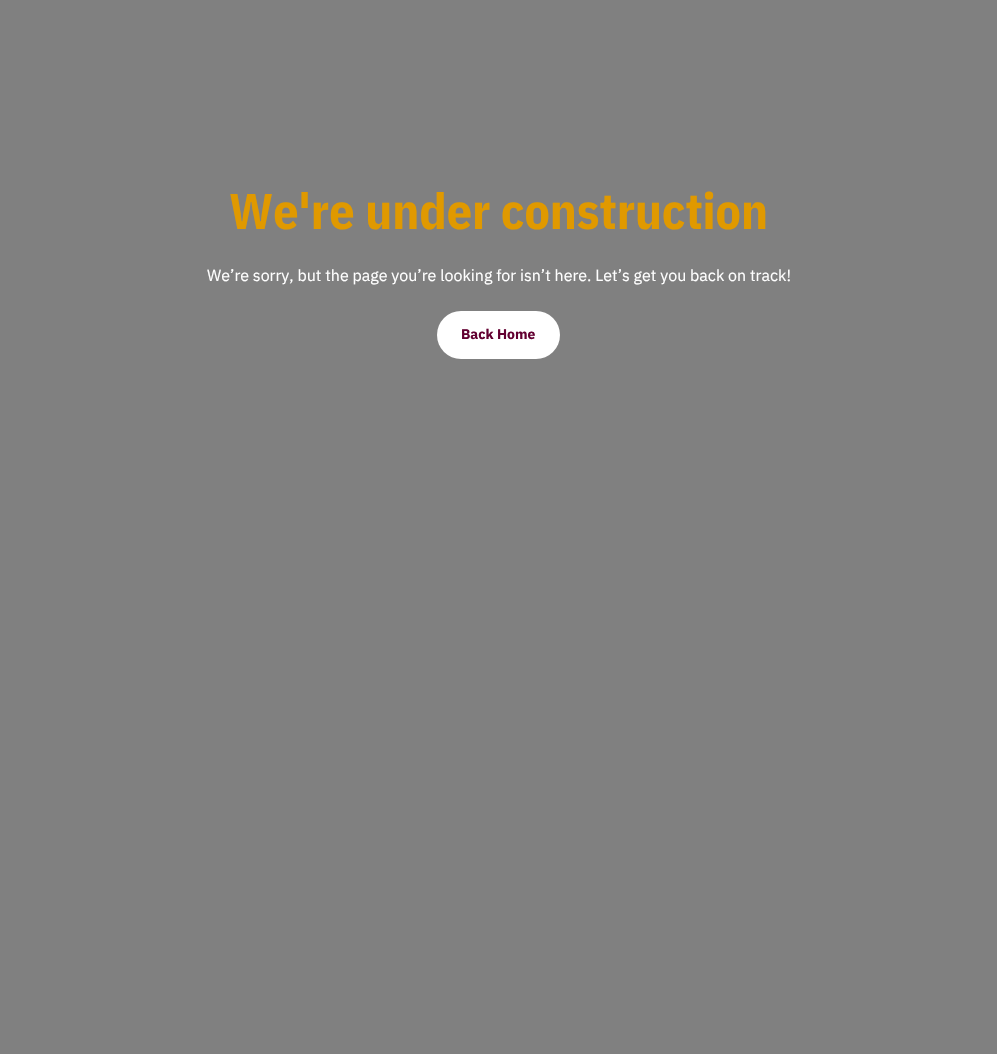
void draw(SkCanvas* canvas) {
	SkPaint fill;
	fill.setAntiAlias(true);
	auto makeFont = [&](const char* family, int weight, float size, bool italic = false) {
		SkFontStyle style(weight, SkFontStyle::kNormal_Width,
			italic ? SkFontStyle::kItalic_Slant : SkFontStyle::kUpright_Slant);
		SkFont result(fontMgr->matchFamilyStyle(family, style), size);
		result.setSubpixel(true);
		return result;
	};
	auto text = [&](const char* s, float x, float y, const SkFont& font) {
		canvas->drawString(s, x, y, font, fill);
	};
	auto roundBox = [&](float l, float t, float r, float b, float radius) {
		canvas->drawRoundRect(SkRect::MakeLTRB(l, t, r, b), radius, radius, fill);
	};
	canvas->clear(0xFF808080);
	fill.setColor(0xFFFFFFFF);
	roundBox(437, 311, 560, 359, 24);
	auto font1 = makeFont("IBM Plex Sans Condensed", 700, 50);
	fill.setColor(0xFFE09900);
	text("We're under construction", 229, 229, font1);
	auto font2 = makeFont("IBM Plex Sans", 400, 16);
	fill.setColor(0xFFFFFFFF);
	text("We’re sorry, but the page you’re looking for isn’t here. Let’s get you back on track!", 207, 281, font2);
	auto font3 = makeFont("IBM Plex Sans", 700, 14);
	fill.setColor(0xFF630031);
	text("Back Home", 461, 339, font3);
}
